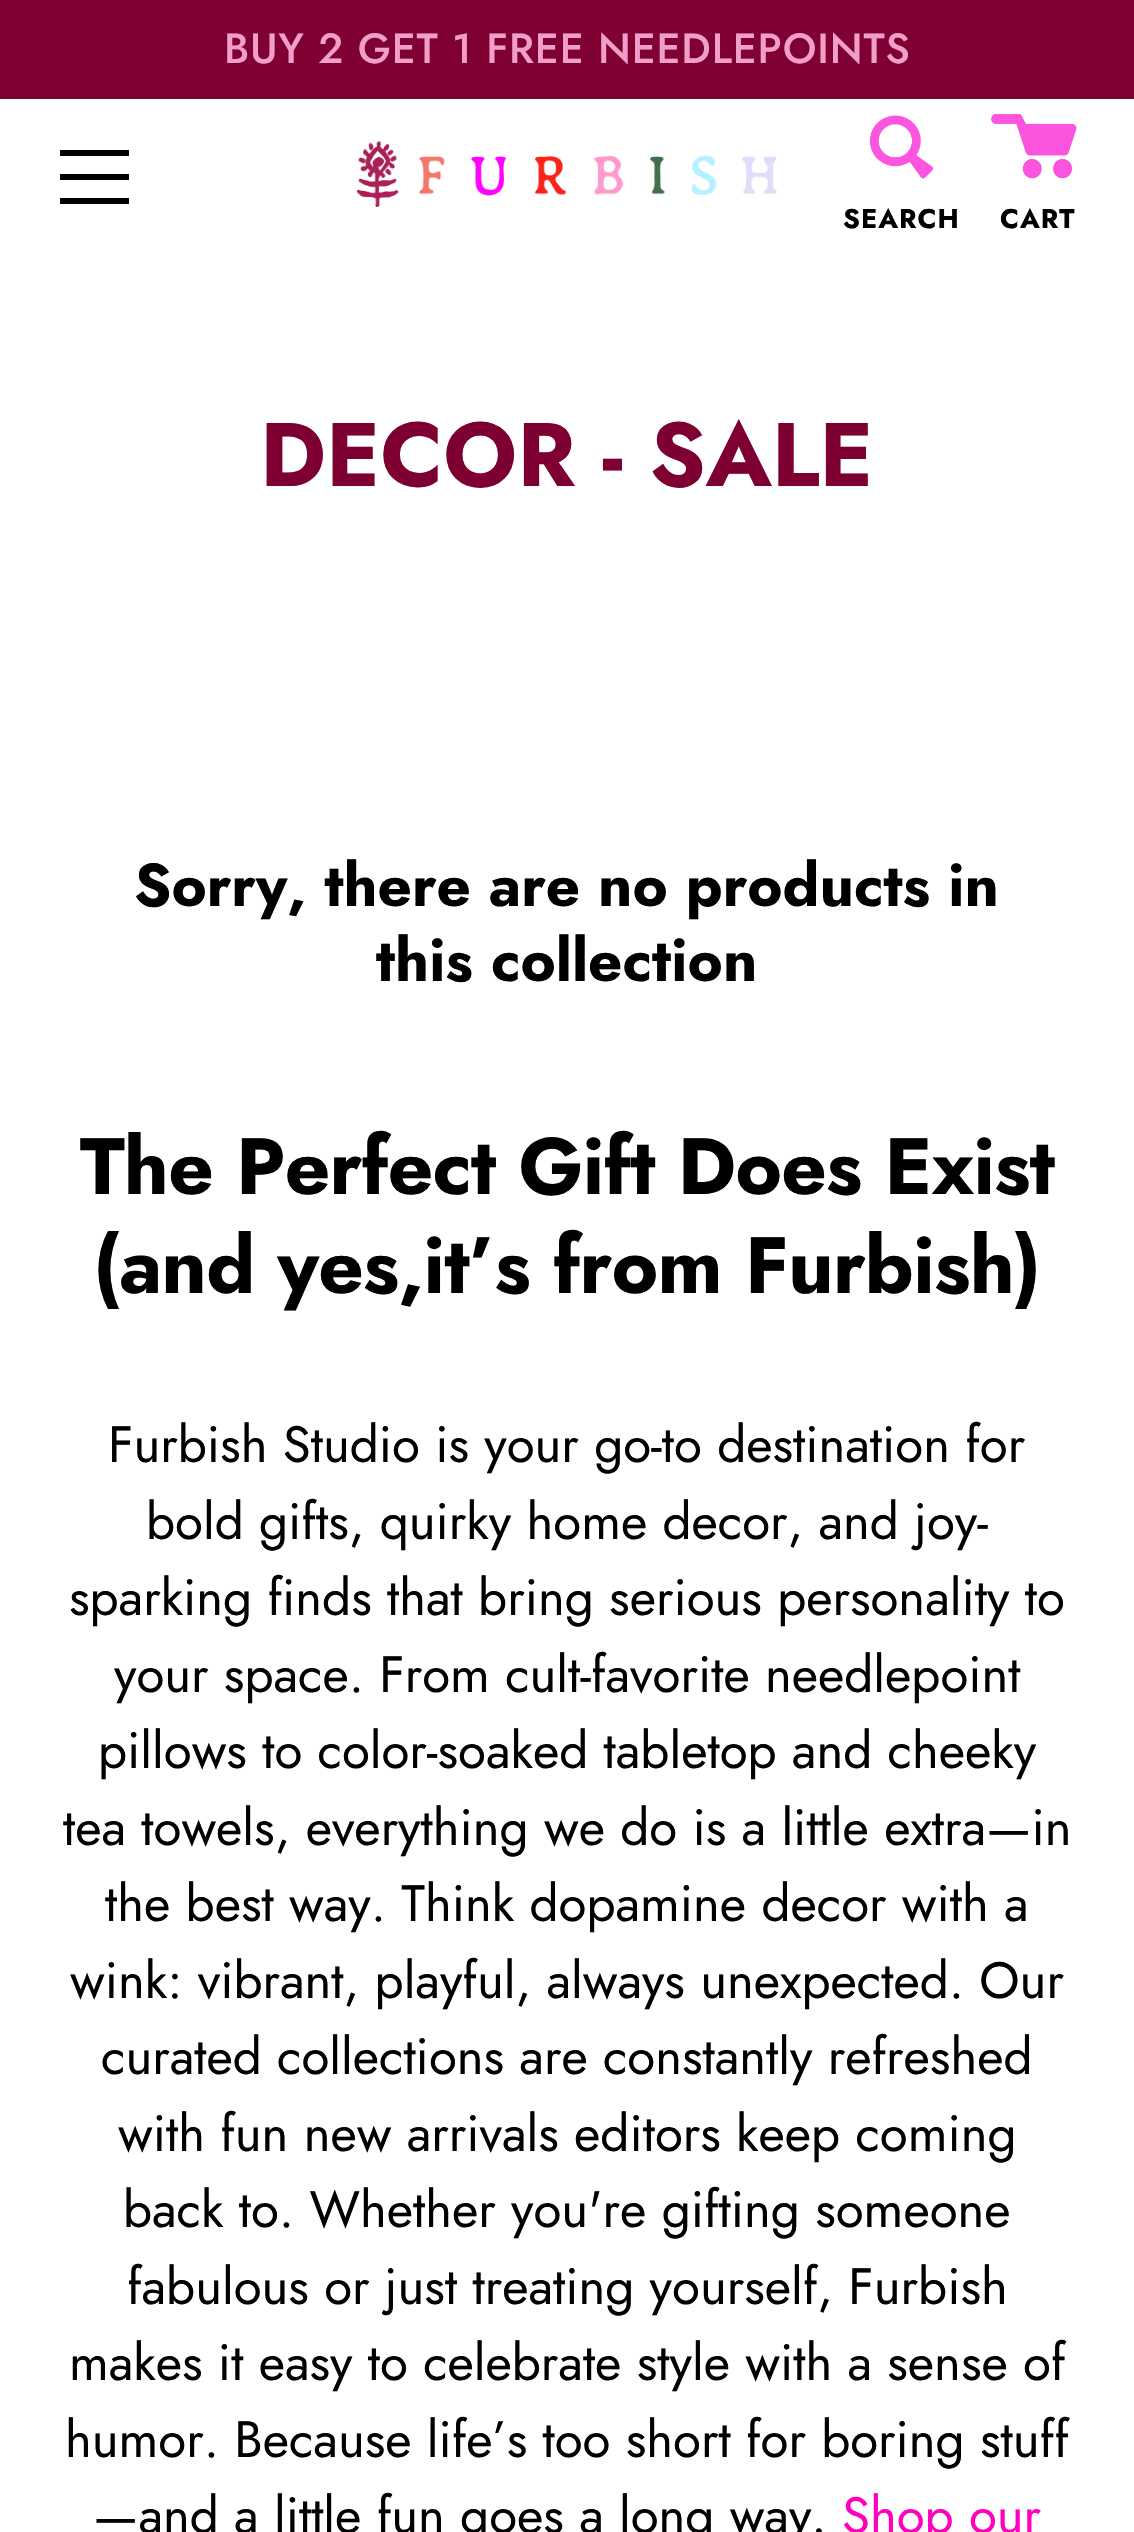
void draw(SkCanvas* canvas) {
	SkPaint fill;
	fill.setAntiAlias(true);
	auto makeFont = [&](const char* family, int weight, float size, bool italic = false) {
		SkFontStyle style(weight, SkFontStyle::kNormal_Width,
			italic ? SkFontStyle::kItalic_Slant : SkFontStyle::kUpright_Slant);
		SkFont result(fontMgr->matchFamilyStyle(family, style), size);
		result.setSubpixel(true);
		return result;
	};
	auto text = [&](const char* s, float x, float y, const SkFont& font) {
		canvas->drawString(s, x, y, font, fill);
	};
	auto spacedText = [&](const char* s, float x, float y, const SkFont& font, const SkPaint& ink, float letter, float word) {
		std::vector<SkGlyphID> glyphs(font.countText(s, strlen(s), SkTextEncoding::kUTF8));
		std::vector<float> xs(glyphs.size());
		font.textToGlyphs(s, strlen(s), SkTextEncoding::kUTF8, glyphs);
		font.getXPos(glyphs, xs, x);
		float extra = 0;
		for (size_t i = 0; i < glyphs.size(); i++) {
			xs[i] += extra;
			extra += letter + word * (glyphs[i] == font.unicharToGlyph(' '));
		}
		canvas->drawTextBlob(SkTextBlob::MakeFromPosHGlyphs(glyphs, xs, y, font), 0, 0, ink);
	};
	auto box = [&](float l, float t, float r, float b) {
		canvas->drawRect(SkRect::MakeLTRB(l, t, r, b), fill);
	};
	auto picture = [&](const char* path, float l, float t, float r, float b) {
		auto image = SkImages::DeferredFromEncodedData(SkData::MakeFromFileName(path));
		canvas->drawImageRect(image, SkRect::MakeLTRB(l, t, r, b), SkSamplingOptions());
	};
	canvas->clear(0xFFFFFFFF);
	fill.setColor(0xFF7F0033);
	box(0, 0, 1134, 99);
	fill.setColor(0xFF000000);
	box(60, 150, 129, 156);
	box(60, 174, 129, 180);
	box(60, 198, 129, 204);
	picture("image0.png", 357, 141, 777, 207);
	picture("image1.png", 869, 115, 934, 179);
	picture("image2.png", 991, 114, 1077, 179);
	auto font1 = makeFont("Jost", 500, 42);
	fill.setColor(0xFFF19ECA);
	spacedText("BUY 2 GET 1 FREE NEEDLEPOINTS", 224, 63, font1, fill, 0.85f, 0);
	auto font2 = makeFont("Jost", 700, 27);
	fill.setColor(0xFF000000);
	spacedText("SEARCH", 843, 228, font2, fill, 1, 0);
	spacedText("CART", 1000, 228, font2, fill, 1, 0);
	auto font3 = makeFont("Jost", 700, 90);
	fill.setColor(0xFF7E0033);
	text("DECOR - SALE", 260, 486, font3);
	auto font4 = makeFont("Jost", 700, 59.9f);
	fill.setColor(0xFF000000);
	text("Sorry, there are no products in", 134, 906, font4);
	text("this collection", 376, 981, font4);
	auto font5 = makeFont("Jost", 700, 79.5f);
	spacedText("The Perfect Gift Does Exist", 80, 1194, font5, fill, -0.8f, 0);
	spacedText("(and yes,it’s from Furbish)", 93, 1293, font5, fill, -0.8f, 0);
	auto font6 = makeFont("Jost", 400, 51);
	text("Furbish Studio is your go-to destination for", 108, 1462, font6);
	text("bold gifts, quirky home decor, and joy-", 146, 1539, font6);
	text("sparking finds that bring serious personality to", 69, 1615, font6);
	text("your space. From cult-favorite needlepoint", 114, 1692, font6);
	text("pillows to color-soaked tabletop and cheeky", 98, 1768, font6);
	text("tea towels, everything we do is a little extra—in", 63, 1845, font6);
	text("the best way. Think dopamine decor with a", 105, 1921, font6);
	text("wink: vibrant, playful, always unexpected. Our", 70, 1998, font6);
	text("curated collections are constantly refreshed", 101, 2074, font6);
	text("with fun new arrivals editors keep coming", 118, 2151, font6);
	text("back to. Whether you're gifting someone", 123, 2227, font6);
	text("fabulous or just treating yourself, Furbish", 127, 2304, font6);
	text("makes it easy to celebrate style with a sense of", 69, 2380, font6);
	text("humor. Because life’s too short for boring stuff", 65, 2457, font6);
	text("—and a little fun goes a long way.", 93, 2533, font6);
	fill.setColor(0xFFFE00BE);
	text("Shop our", 842, 2533, font6);
}
